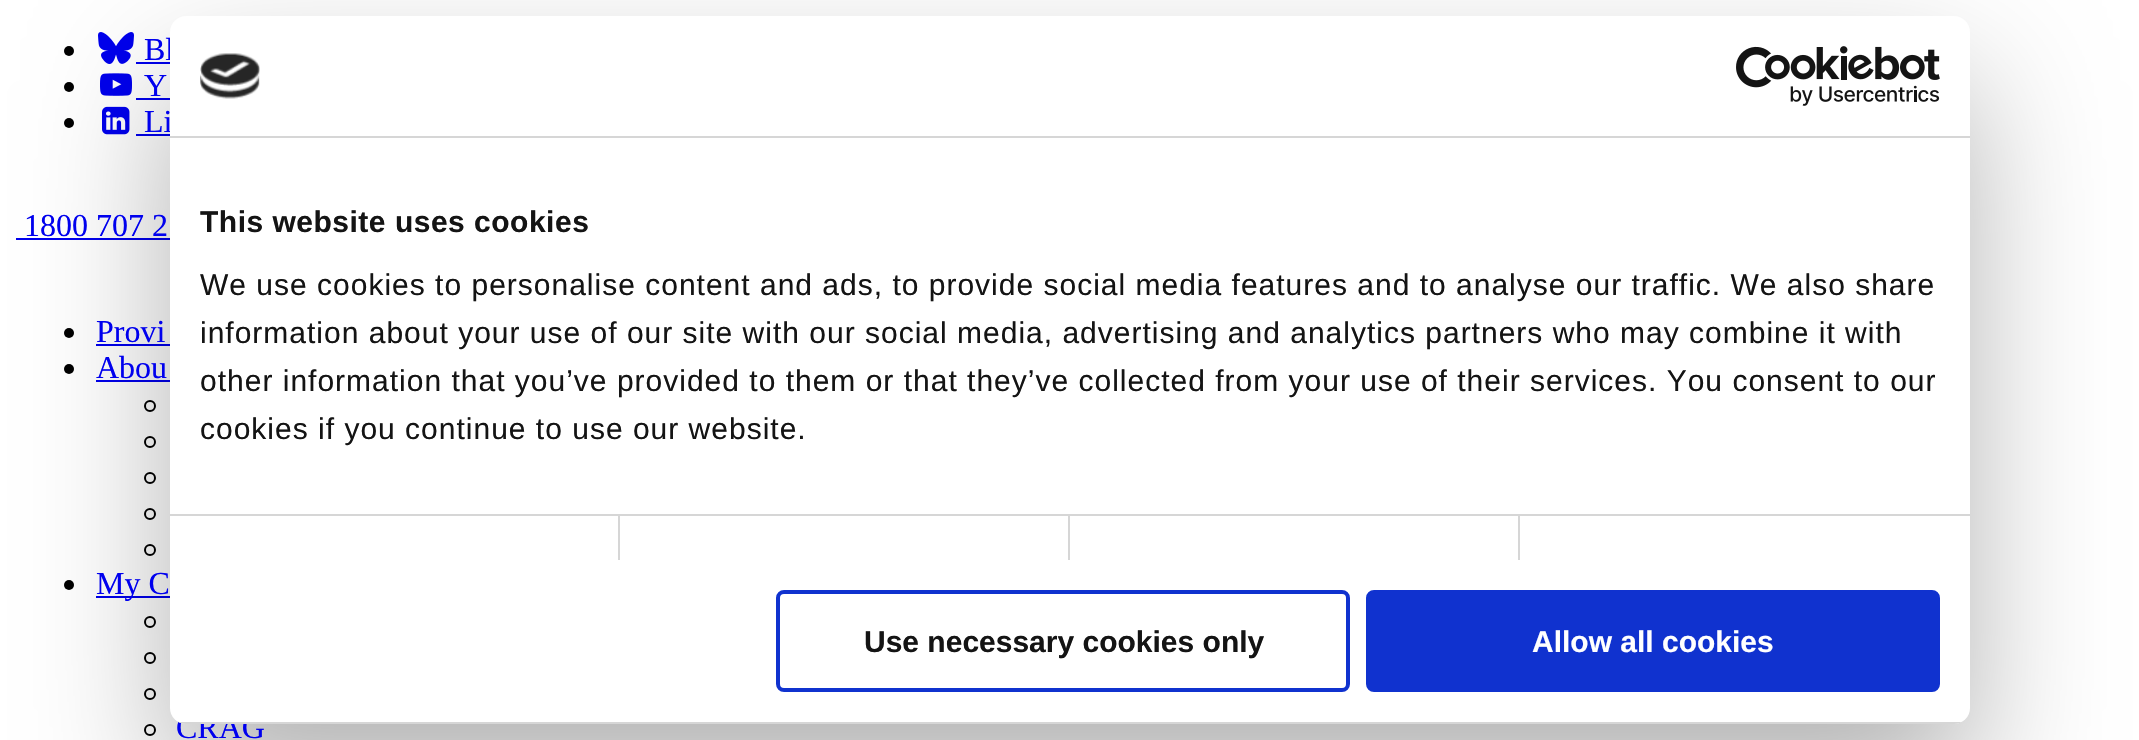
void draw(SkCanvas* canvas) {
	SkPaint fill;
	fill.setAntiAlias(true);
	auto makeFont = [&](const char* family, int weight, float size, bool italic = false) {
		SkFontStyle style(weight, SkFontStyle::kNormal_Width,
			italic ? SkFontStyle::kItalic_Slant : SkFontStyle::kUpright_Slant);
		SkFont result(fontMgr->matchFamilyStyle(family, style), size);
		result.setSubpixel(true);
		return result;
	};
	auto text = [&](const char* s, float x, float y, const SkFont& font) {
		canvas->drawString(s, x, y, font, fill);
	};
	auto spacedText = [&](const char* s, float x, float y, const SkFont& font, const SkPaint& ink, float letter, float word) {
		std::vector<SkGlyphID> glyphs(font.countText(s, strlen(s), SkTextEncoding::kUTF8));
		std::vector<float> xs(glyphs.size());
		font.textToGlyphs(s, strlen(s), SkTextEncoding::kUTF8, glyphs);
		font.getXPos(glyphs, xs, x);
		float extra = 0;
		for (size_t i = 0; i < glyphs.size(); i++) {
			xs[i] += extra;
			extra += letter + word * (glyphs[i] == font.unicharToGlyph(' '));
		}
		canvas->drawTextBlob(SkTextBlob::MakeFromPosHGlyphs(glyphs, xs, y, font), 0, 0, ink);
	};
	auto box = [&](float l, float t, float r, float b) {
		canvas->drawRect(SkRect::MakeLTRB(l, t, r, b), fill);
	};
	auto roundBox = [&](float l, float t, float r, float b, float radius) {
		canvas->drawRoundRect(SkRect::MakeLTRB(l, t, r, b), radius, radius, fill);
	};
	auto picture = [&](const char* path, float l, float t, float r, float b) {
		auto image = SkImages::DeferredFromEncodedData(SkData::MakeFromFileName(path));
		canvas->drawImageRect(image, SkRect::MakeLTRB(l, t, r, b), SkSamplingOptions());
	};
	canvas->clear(0xFFFFFFFF);
	fill.setColor(0xFF000000);
	canvas->drawCircle(69, 51, 5, fill);
	picture("image0.png", 98, 32, 134, 64);
	fill.setColor(0xFF0000EE);
	box(136, 62, 170, 64);
	fill.setColor(0xFF000000);
	canvas->drawCircle(69, 87, 5, fill);
	picture("image1.png", 100, 73, 132, 96);
	fill.setColor(0xFF0000EE);
	box(136, 98, 170, 100);
	fill.setColor(0xFF000000);
	canvas->drawCircle(69, 123, 5, fill);
	picture("image2.png", 102, 106, 130, 135);
	fill.setColor(0xFF0000EE);
	box(136, 134, 170, 136);
	box(16, 238, 170, 240);
	fill.setColor(0xFF000000);
	canvas->drawCircle(69, 333, 5, fill);
	fill.setColor(0xFF0000EE);
	box(96, 344, 170, 346);
	fill.setColor(0xFF000000);
	canvas->drawCircle(69, 369, 5, fill);
	fill.setColor(0xFF0000EE);
	box(96, 380, 170, 382);
	fill.setStyle(SkPaint::kStroke_Style);
	fill.setStrokeWidth(2);
	fill.setColor(0xFF000000);
	canvas->drawCircle(150, 406, 5, fill);
	canvas->drawCircle(150, 442, 5, fill);
	canvas->drawCircle(150, 478, 5, fill);
	canvas->drawCircle(150, 514, 5, fill);
	canvas->drawCircle(150, 550, 5, fill);
	fill.setStyle(SkPaint::kFill_Style);
	canvas->drawCircle(69, 585, 5, fill);
	fill.setColor(0xFF0000EE);
	box(96, 596, 170, 598);
	fill.setStyle(SkPaint::kStroke_Style);
	fill.setColor(0xFF000000);
	canvas->drawCircle(150, 622, 5, fill);
	canvas->drawCircle(150, 658, 5, fill);
	canvas->drawCircle(150, 694, 5, fill);
	canvas->drawCircle(150, 730, 5, fill);
	fill.setStyle(SkPaint::kFill_Style);
	fill.setColor(0x4D000000);
	fill.setMaskFilter(SkMaskFilter::MakeBlur(kNormal_SkBlurStyle, 68));
	canvas->drawRoundRect(SkRect::MakeLTRB(170, 80, 1970, 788), 16, 16, fill);
	fill.setMaskFilter(nullptr);
	auto font1 = makeFont("Liberation Serif", 400, 32);
	fill.setColor(0xFF0000EE);
	text("Bl", 144, 60, font1);
	text("Y", 144, 96, font1);
	text("Li", 144, 132, font1);
	text("1800 707 2", 24, 236, font1);
	text("Provi", 96, 342, font1);
	text("Abou", 96, 378, font1);
	text("My C", 96, 594, font1);
	text("CRAG", 176, 738, font1);
	fill.setColor(0xFFFFFFFF);
	roundBox(170, 16, 1970, 724, 16);
	fill.setColor(0xFFD6D6D6);
	box(170, 136, 1970, 138);
	picture("image3.png", 200, 53, 260, 99);
	picture("image4.png", 1736, 46, 1940, 106);
	box(170, 514, 1970, 516);
	auto font2 = makeFont("Liberation Sans", 700, 30);
	fill.setColor(0xFF141414);
	spacedText("This website uses cookies", 200, 232, font2, fill, 0.5f, 0);
	auto font3 = makeFont("Liberation Sans", 400, 30);
	spacedText("We use cookies to personalise content and ads, to provide social media features and to analyse our traffic. We also share", 200, 295, font3, fill, 1, 0);
	spacedText("information about your use of our site with our social media, advertising and analytics partners who may combine it with", 200, 343, font3, fill, 1, 0);
	spacedText("other information that you’ve provided to them or that they’ve collected from your use of their services. You consent to our", 200, 391, font3, fill, 1, 0);
	spacedText("cookies if you continue to use our website.", 200, 439, font3, fill, 1, 0);
	fill.setColor(0xFFD6D6D6);
	box(618, 516, 620, 560);
	box(1068, 516, 1070, 560);
	box(1518, 516, 1520, 560);
	canvas->save();
	canvas->clipPath(SkPathBuilder().moveTo(186, 16).lineTo(1954, 16).cubicTo(1963, 16, 1970, 23, 1970, 32).lineTo(1970, 708).cubicTo(1970, 717, 1963, 724, 1954, 724).lineTo(186, 724).cubicTo(177, 724, 170, 717, 170, 708).lineTo(170, 32).cubicTo(170, 23, 177, 16, 186, 16).close().detach(), true);
	box(170, 722, 1970, 724);
	canvas->restore();
	fill.setStyle(SkPaint::kStroke_Style);
	fill.setStrokeWidth(4);
	fill.setColor(0xFF1032CF);
	canvas->drawRoundRect(SkRect::MakeLTRB(778, 592, 1348, 690), 6, 6, fill);
	fill.setStyle(SkPaint::kFill_Style);
	fill.setColor(0xFF141414);
	text("Use necessary cookies only", 864, 652, font2);
	fill.setColor(0xFF1032CF);
	canvas->drawRoundRect(SkRect::MakeLTRB(1368, 592, 1938, 690), 6, 6, fill);
	fill.setStyle(SkPaint::kStroke_Style);
	canvas->drawRoundRect(SkRect::MakeLTRB(1368, 592, 1938, 690), 6, 6, fill);
	fill.setStyle(SkPaint::kFill_Style);
	fill.setColor(0xFFFFFFFF);
	text("Allow all cookies", 1532, 652, font2);
}
